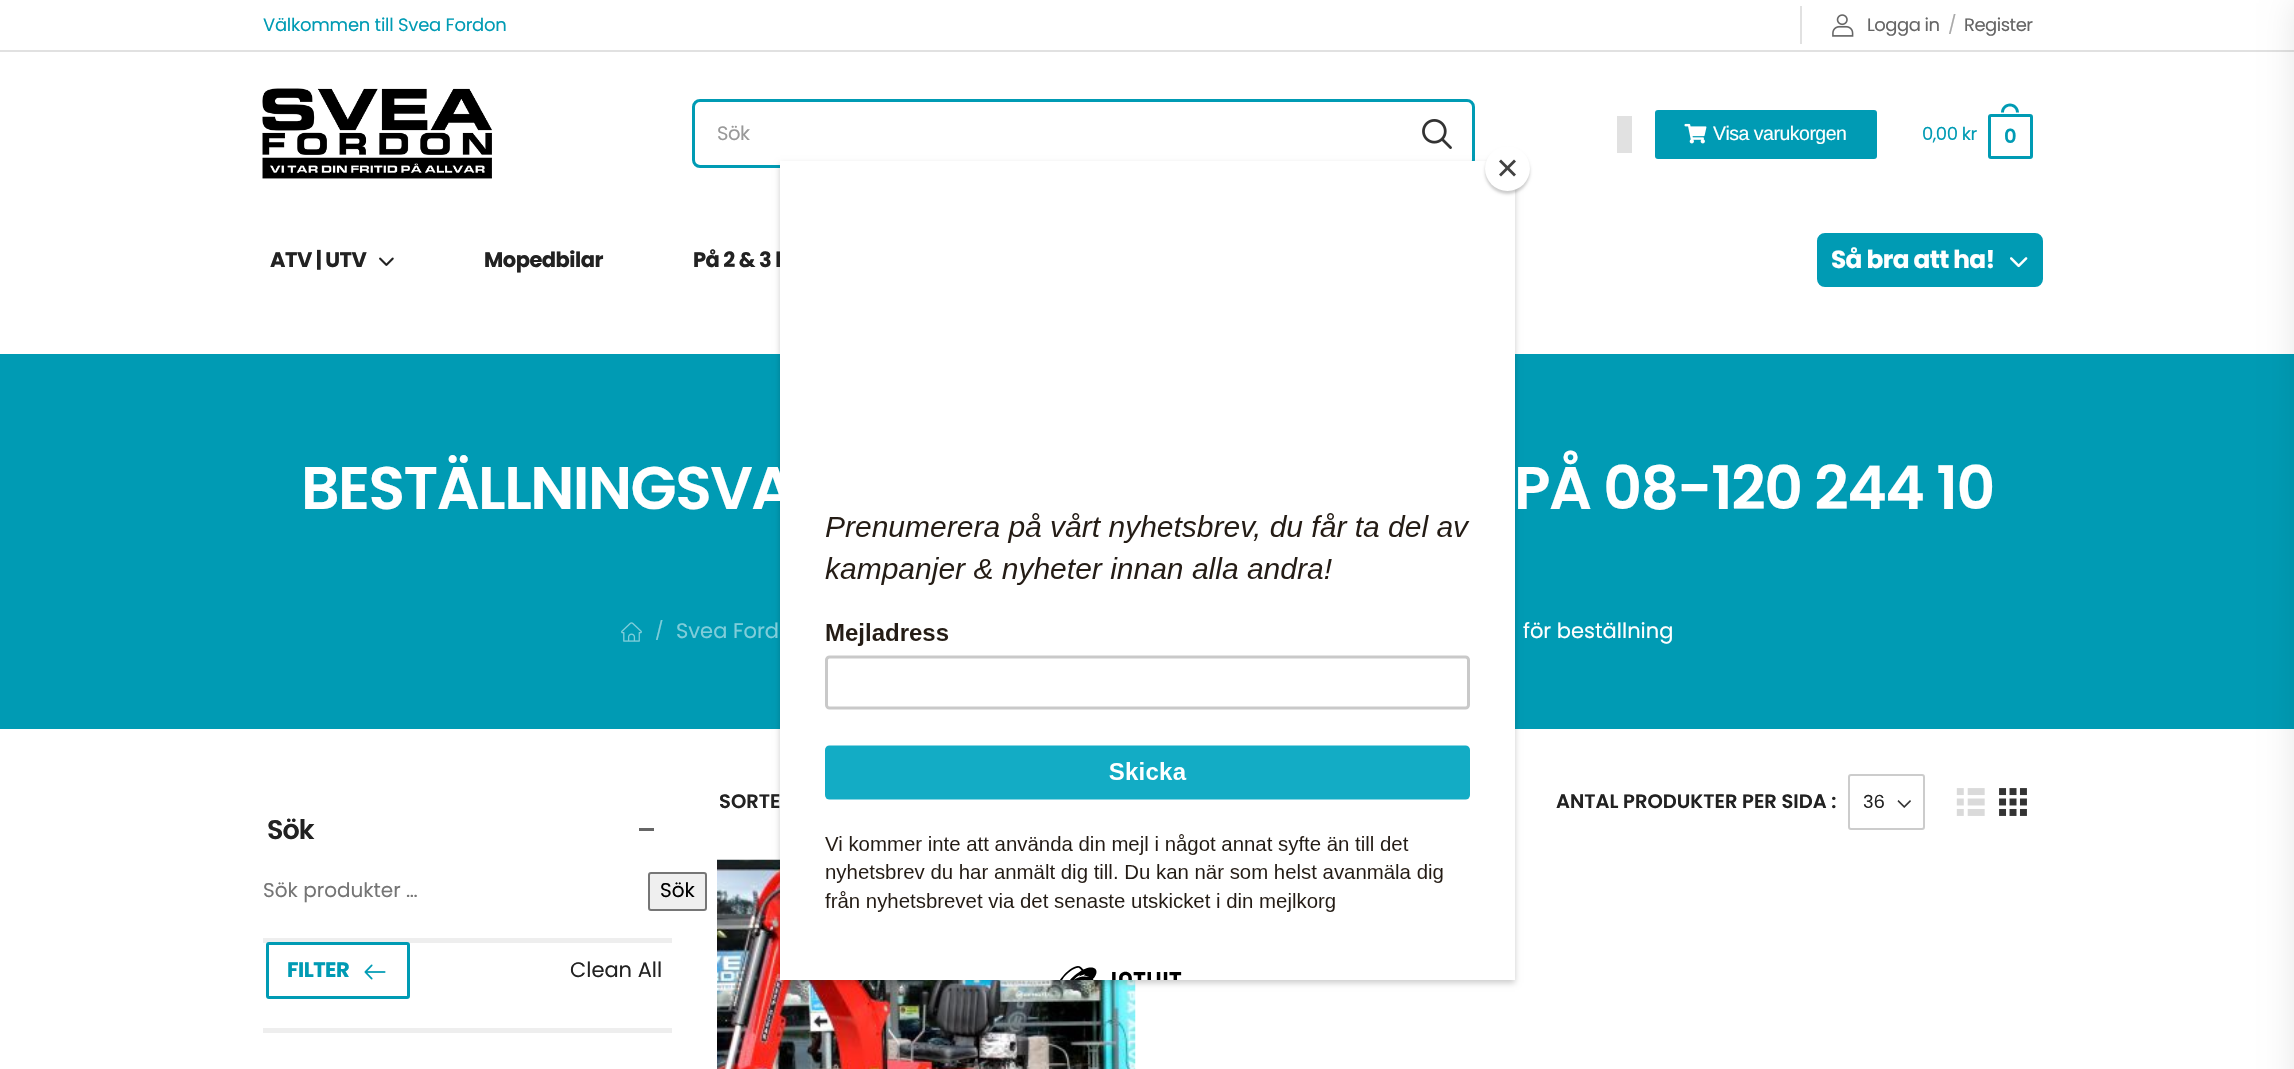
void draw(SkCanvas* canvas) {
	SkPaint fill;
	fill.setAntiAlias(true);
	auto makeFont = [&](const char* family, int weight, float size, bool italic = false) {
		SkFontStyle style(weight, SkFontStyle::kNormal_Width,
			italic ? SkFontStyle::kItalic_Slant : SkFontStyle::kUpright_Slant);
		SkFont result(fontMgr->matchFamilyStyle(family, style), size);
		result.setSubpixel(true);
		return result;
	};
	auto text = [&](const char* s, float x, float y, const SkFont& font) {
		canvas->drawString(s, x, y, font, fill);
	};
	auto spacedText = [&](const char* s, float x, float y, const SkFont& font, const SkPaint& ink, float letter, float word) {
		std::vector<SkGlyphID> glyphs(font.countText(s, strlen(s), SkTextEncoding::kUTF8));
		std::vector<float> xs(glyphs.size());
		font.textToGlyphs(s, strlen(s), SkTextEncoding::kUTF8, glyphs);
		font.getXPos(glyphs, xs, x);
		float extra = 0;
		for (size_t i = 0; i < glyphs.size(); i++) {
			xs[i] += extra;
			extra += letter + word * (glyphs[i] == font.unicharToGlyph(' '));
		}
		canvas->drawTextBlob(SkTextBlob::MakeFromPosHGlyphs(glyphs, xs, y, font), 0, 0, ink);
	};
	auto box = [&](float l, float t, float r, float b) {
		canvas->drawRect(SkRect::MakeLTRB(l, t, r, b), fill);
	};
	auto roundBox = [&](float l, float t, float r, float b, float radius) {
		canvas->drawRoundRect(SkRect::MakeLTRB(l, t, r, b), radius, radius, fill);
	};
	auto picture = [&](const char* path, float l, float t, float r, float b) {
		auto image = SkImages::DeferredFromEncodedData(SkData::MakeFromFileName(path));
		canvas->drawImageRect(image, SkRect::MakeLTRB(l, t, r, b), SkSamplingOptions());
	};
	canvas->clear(0xFFFFFFFF);
	fill.setColor(0xFFE1E1E1);
	box(0, 50, 2294, 52);
	box(1800, 6, 1802, 44);
	picture("image0.png", 1832, 14, 1854, 37);
	picture("image1.png", 262, 88, 492, 179);
	fill.setStyle(SkPaint::kStroke_Style);
	fill.setStrokeWidth(3);
	fill.setColor(0xFF009BB4);
	canvas->drawRoundRect(SkRect::MakeLTRB(693.5f, 100.5f, 1473.5f, 166.5f), 6.5f, 6.5f, fill);
	picture("image2.png", 1422, 119, 1452, 149);
	fill.setStyle(SkPaint::kFill_Style);
	fill.setColor(0xFFE1E1E1);
	box(1617, 116, 1632, 153);
	fill.setColor(0xFF009BB4);
	roundBox(1655, 110, 1877, 159, 3);
	picture("image3.png", 1684, 123, 1707, 144);
	fill.setStyle(SkPaint::kStroke_Style);
	canvas->drawRoundRect(SkRect::MakeLTRB(1989.5f, 115.5f, 2031.5f, 157.5f), 1.5f, 1.5f, fill);
	fill.setStyle(SkPaint::kFill_Style);
	canvas->drawPath(SkPathBuilder(SkPathFillType::kEvenOdd).moveTo(2010, 103.5f).cubicTo(2015, 103.5f, 2019, 107.5f, 2019, 112.5f).lineTo(2001, 112.5f).cubicTo(2001, 107.5f, 2005, 103.5f, 2010, 103.5f).close().moveTo(2010, 106.5f).cubicTo(2013.5f, 106.5f, 2016, 109, 2016, 112.5f).lineTo(2004, 112.5f).cubicTo(2004, 109, 2006.5f, 106.5f, 2010, 106.5f).close().detach(), fill);
	box(0, 354, 2294, 729);
	fill.setColor(0x1A000000);
	fill.setMaskFilter(SkMaskFilter::MakeBlur(kNormal_SkBlurStyle, 16.5f));
	canvas->drawRect(SkRect::MakeLTRB(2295, 3, 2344, 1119), fill);
	fill.setMaskFilter(nullptr);
	picture("image4.png", 379, 257, 394, 266);
	fill.setColor(0xFF009BB4);
	canvas->drawRoundRect(SkRect::MakeLTRB(1824, 240, 2036, 280), 1, 1, fill);
	fill.setStyle(SkPaint::kStroke_Style);
	fill.setStrokeWidth(14);
	canvas->drawRoundRect(SkRect::MakeLTRB(1824, 240, 2036, 280), 1, 1, fill);
	picture("image5.png", 2010, 257, 2028, 268);
	picture("image6.png", 621, 622, 642, 642);
	picture("image7.png", 1897, 800, 1911, 808);
	fill.setStrokeWidth(2);
	fill.setColor(0xFFCCCCCC);
	canvas->drawRoundRect(SkRect::MakeLTRB(1849, 775, 1924, 829), 2, 2, fill);
	picture("image8.png", 1956, 788, 1985, 816);
	picture("image9.png", 1999, 788, 2027, 816);
	picture("image10.png", 717, 859, 1136, 1069);
	fill.setStyle(SkPaint::kFill_Style);
	fill.setColor(0xFFEEEEEE);
	box(263, 938, 672, 943);
	fill.setColor(0xFF666666);
	box(639, 828, 654, 831);
	fill.setColor(0xFFEFEFEF);
	canvas->drawRoundRect(SkRect::MakeLTRB(649, 873, 706, 910), 2, 2, fill);
	fill.setStyle(SkPaint::kStroke_Style);
	fill.setColor(0xFF767676);
	canvas->drawRoundRect(SkRect::MakeLTRB(649, 873, 706, 910), 2, 2, fill);
	fill.setStyle(SkPaint::kFill_Style);
	fill.setColor(0xFFEEEEEE);
	box(263, 1028, 672, 1033);
	fill.setStyle(SkPaint::kStroke_Style);
	fill.setStrokeWidth(3);
	fill.setColor(0xFF009BB4);
	canvas->drawRoundRect(SkRect::MakeLTRB(267.5f, 943.5f, 408.5f, 997.5f), 1.5f, 1.5f, fill);
	picture("image11.png", 364, 964, 386, 980);
	fill.setStyle(SkPaint::kFill_Style);
	fill.setColor(0x33000000);
	fill.setMaskFilter(SkMaskFilter::MakeBlur(kNormal_SkBlurStyle, 3));
	canvas->drawRect(SkRect::MakeLTRB(780, 164, 1515, 983), fill);
	fill.setMaskFilter(nullptr);
	auto font1 = makeFont("Poppins", 400, 18);
	fill.setColor(0xFF009BB4);
	spacedText("Välkommen till Svea Fordon", 263, 31, font1, fill, -0.25f, 0);
	fill.setColor(0xFF666666);
	spacedText("Logga in", 1867, 31, font1, fill, -0.5f, 0);
	fill.setColor(0xFFAAAAAA);
	spacedText("/", 1948, 31, font1, fill, -0.5f, 0);
	fill.setColor(0xFF666666);
	spacedText("Register", 1964, 31, font1, fill, -0.5f, 0);
	auto font2 = makeFont("Poppins", 400, 19.5f);
	fill.setColor(0xFF999999);
	spacedText("Sök", 717, 140, font2, fill, -0.5f, 0);
	auto font3 = makeFont("Liberation Sans", 400, 19.5f);
	fill.setColor(0xFFFFFFFF);
	spacedText("Visa varukorgen", 1713, 140, font3, fill, -0.5f, 0);
	fill.setColor(0xFF009BB4);
	spacedText("0,00 kr", 1922, 140, font1, fill, -0.5f, 0);
	auto font4 = makeFont("Poppins", 600, 19.5f);
	spacedText("0", 2004, 143, font4, fill, -0.5f, 0);
	auto font5 = makeFont("Poppins", 700, 21);
	fill.setColor(0xFF222222);
	spacedText("ATV | UTV", 270, 267, font5, fill, -0.5f, 0);
	spacedText("Mopedbilar", 484, 267, font5, fill, -0.5f, 0);
	spacedText("På 2 & 3 h", 693, 267, font5, fill, -0.5f, 0);
	auto font6 = makeFont("Poppins", 700, 24.75f);
	fill.setColor(0xFFFFFFFF);
	spacedText("Så bra att ha!", 1831, 268, font6, fill, -0.6f, 0);
	auto font7 = makeFont("Poppins", 600, 60);
	spacedText("BESTÄLLNINGSVA", 301, 509, font7, fill, -1.5f, 0);
	spacedText("PÅ 08-120 244 10", 1514, 509, font7, fill, -1.5f, 0);
	fill.setColor(0xFF80CDDA);
	text("/", 655, 637, font1);
	auto font8 = makeFont("Poppins", 400, 21);
	text("Svea Ford", 676, 638, font8);
	fill.setColor(0xFFFFFFFF);
	text("för beställning", 1523, 638, font8);
	fill.setColor(0xFF222222);
	text("SORTE", 719, 808, font4);
	text("ANTAL PRODUKTER PER SIDA :", 1556, 808, font4);
	text("36", 1863, 808, font1);
	auto font9 = makeFont("Poppins", 600, 27);
	spacedText("Sök", 267, 839, font9, fill, -1, 0);
	auto font10 = makeFont("Poppins", 400, 20);
	fill.setColor(0xFF757575);
	text("Sök produkter …", 263, 897, font10);
	fill.setColor(0xFF000000);
	text("Sök", 660, 897, font10);
	fill.setColor(0xFF009BB4);
	spacedText("FILTER", 287, 977, font5, fill, -0.5f, 0);
	fill.setColor(0xFF222222);
	text("Clean All", 570, 977, font8);
	picture("image12.png", 780, 161, 1515, 980);
	fill.setColor(0x33000000);
	fill.setMaskFilter(SkMaskFilter::MakeBlur(kNormal_SkBlurStyle, 1.5f));
	canvas->drawRoundRect(SkRect::MakeLTRB(1485, 149, 1530, 194), 22.5f, 22.5f, fill);
	fill.setMaskFilter(nullptr);
	fill.setColor(0xFFFFFFFF);
	canvas->drawCircle(1507.5f, 168.5f, 22.5f, fill);
	fill.setColor(0xFF414141);
	canvas->drawPath(SkPathBuilder().moveTo(1514, 159.5f).lineTo(1516, 161.5f).lineTo(1501, 176.5f).lineTo(1499, 174.5f).close().detach(), fill);
	canvas->drawPath(SkPathBuilder().moveTo(1499, 161.5f).lineTo(1501, 159.5f).lineTo(1516, 174.5f).lineTo(1514, 176.5f).close().detach(), fill);
}
